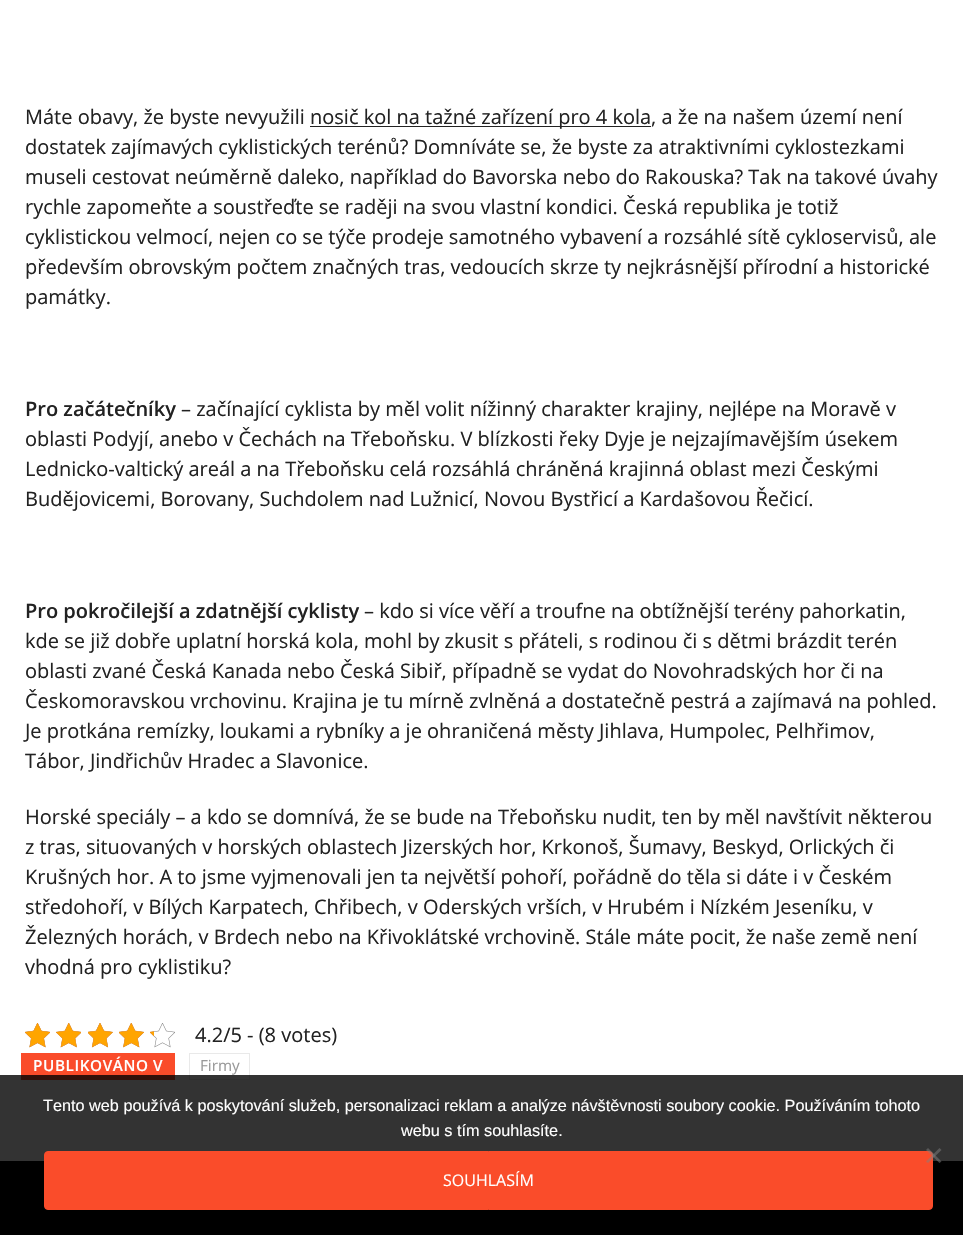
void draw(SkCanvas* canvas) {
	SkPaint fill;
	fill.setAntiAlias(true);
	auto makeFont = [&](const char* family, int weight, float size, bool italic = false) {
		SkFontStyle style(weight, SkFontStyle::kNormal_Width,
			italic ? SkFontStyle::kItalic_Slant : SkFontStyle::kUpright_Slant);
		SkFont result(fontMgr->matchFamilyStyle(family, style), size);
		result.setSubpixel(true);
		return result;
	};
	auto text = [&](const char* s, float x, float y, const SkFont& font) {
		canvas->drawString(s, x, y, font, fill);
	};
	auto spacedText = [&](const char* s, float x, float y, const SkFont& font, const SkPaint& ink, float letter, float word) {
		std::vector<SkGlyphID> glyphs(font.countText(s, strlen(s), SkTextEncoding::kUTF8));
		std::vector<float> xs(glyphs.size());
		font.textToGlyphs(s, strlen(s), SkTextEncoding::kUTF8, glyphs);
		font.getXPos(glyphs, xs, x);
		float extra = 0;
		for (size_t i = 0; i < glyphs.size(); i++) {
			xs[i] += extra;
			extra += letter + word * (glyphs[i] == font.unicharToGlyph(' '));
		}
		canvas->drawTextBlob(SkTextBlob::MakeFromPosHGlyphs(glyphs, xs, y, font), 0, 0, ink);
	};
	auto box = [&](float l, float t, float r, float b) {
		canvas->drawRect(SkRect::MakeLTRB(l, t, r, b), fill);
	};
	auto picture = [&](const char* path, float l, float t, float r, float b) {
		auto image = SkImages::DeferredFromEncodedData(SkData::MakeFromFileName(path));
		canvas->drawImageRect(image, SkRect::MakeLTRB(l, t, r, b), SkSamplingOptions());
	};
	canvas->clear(0xFFFFFFFF);
	fill.setColor(0xFF222222);
	box(310, 126, 651, 127);
	picture("image0.png", 25, 1023, 50, 1048);
	picture("image1.png", 56, 1023, 81, 1048);
	picture("image2.png", 88, 1023, 113, 1048);
	picture("image3.png", 119, 1023, 144, 1048);
	picture("image0.png", 150, 1023, 175, 1048);
	picture("image4.png", 25, 1023, 50, 1048);
	picture("image5.png", 56, 1023, 81, 1048);
	picture("image6.png", 88, 1023, 113, 1048);
	picture("image7.png", 119, 1023, 144, 1048);
	picture("image8.png", 150, 1031, 154, 1037);
	fill.setColor(0xFFFA4C2A);
	box(21, 1053, 175, 1080);
	fill.setStyle(SkPaint::kStroke_Style);
	fill.setStrokeWidth(1);
	fill.setColor(0xFFE9E9E9);
	canvas->drawRect(SkRect::MakeLTRB(189.5f, 1053.5f, 249.5f, 1079.5f), fill);
	fill.setStyle(SkPaint::kFill_Style);
	fill.setColor(0xFF000000);
	box(0, 1161, 963, 1235);
	fill.setColor(0xCC000000);
	box(0, 1075, 963, 1161);
	fill.setColor(0xFFFA4C2A);
	canvas->drawRoundRect(SkRect::MakeLTRB(44.5f, 1151.5f, 932.5f, 1209.5f), 3.5f, 3.5f, fill);
	fill.setStyle(SkPaint::kStroke_Style);
	canvas->drawRoundRect(SkRect::MakeLTRB(44.5f, 1151.5f, 932.5f, 1209.5f), 3.5f, 3.5f, fill);
	fill.setStyle(SkPaint::kFill_Style);
	fill.setColor(0x80808080);
	canvas->drawPath(SkPathBuilder().moveTo(939.5f, 1148).lineTo(941.5f, 1150).lineTo(928, 1163).lineTo(926, 1161.5f).close().detach(), fill);
	canvas->drawPath(SkPathBuilder().moveTo(926, 1150).lineTo(928, 1148).lineTo(941.5f, 1161.5f).lineTo(939.5f, 1163).close().detach(), fill);
	auto font1 = makeFont("Open Sans", 400, 20);
	fill.setColor(0xFF222222);
	text("Máte obavy, že byste nevyužili", 25, 124, font1);
	text("nosič kol na tažné zařízení pro 4 kola, a že na našem území není", 310, 124, font1);
	text("dostatek zajímavých cyklistických terénů? Domníváte se, že byste za atraktivními cyklostezkami", 25, 154, font1);
	text("museli cestovat neúměrně daleko, například do Bavorska nebo do Rakouska? Tak na takové úvahy", 25, 184, font1);
	text("rychle zapomeňte a soustřeďte se raději na svou vlastní kondici. Česká republika je totiž", 25, 214, font1);
	text("cyklistickou velmocí, nejen co se týče prodeje samotného vybavení a rozsáhlé sítě cykloservisů, ale", 25, 244, font1);
	text("především obrovským počtem značných tras, vedoucích skrze ty nejkrásnější přírodní a historické", 25, 274, font1);
	text("památky.", 25, 304, font1);
	auto font2 = makeFont("Open Sans", 600, 20);
	text("Pro začátečníky", 25, 416, font2);
	text("– začínající cyklista by měl volit nížinný charakter krajiny, nejlépe na Moravě v", 181, 416, font1);
	text("oblasti Podyjí, anebo v Čechách na Třeboňsku. V blízkosti řeky Dyje je nejzajímavějším úsekem", 25, 446, font1);
	text("Lednicko-valtický areál a na Třeboňsku celá rozsáhlá chráněná krajinná oblast mezi Českými", 25, 476, font1);
	text("Budějovicemi, Borovany, Suchdolem nad Lužnicí, Novou Bystřicí a Kardašovou Řečicí.", 25, 506, font1);
	text("Pro pokročilejší a zdatnější cyklisty", 25, 618, font2);
	text("– kdo si více věří a troufne na obtížnější terény pahorkatin,", 364, 618, font1);
	text("kde se již dobře uplatní horská kola, mohl by zkusit s přáteli, s rodinou či s dětmi brázdit terén", 25, 648, font1);
	text("oblasti zvané Česká Kanada nebo Česká Sibiř, případně se vydat do Novohradských hor či na", 25, 678, font1);
	text("Českomoravskou vrchovinu. Krajina je tu mírně zvlněná a dostatečně pestrá a zajímavá na pohled.", 25, 708, font1);
	text("Je protkána remízky, loukami a rybníky a je ohraničená městy Jihlava, Humpolec, Pelhřimov,", 25, 738, font1);
	text("Tábor, Jindřichův Hradec a Slavonice.", 25, 768, font1);
	text("Horské speciály – a kdo se domnívá, že se bude na Třeboňsku nudit, ten by měl navštívit některou", 25, 824, font1);
	text("z tras, situovaných v horských oblastech Jizerských hor, Krkonoš, Šumavy, Beskyd, Orlických či", 25, 854, font1);
	text("Krušných hor. A to jsme vyjmenovali jen ta největší pohoří, pořádně do těla si dáte i v Českém", 25, 884, font1);
	text("středohoří, v Bílých Karpatech, Chřibech, v Oderských vrších, v Hrubém i Nízkém Jeseníku, v", 25, 914, font1);
	text("Železných horách, v Brdech nebo na Křivoklátské vrchovině. Stále máte pocit, že naše země není", 25, 944, font1);
	text("vhodná pro cyklistiku?", 25, 974, font1);
	text("4.2/5 - (8 votes)", 195, 1042, font1);
	auto font3 = makeFont("Open Sans", 600, 15.25f);
	fill.setColor(0xFFFFFFFF);
	spacedText("PUBLIKOVÁNO V", 33, 1071, font3, fill, 0.6f, 0);
	auto font4 = makeFont("Open Sans", 400, 15.25f);
	fill.setColor(0xFF999999);
	text("Firmy", 200, 1071, font4);
	auto font5 = makeFont("Liberation Sans", 400, 16.25f);
	fill.setColor(0xFFFFFFFF);
	text("Tento web používá k poskytování služeb, personalizaci reklam a analýze návštěvnosti soubory cookie. Používáním tohoto", 43, 1111, font5);
	text("webu s tím souhlasíte.", 401, 1136, font5);
	auto font6 = makeFont("Open Sans", 400, 16);
	text("SOUHLASÍM", 443, 1186, font6);
}
